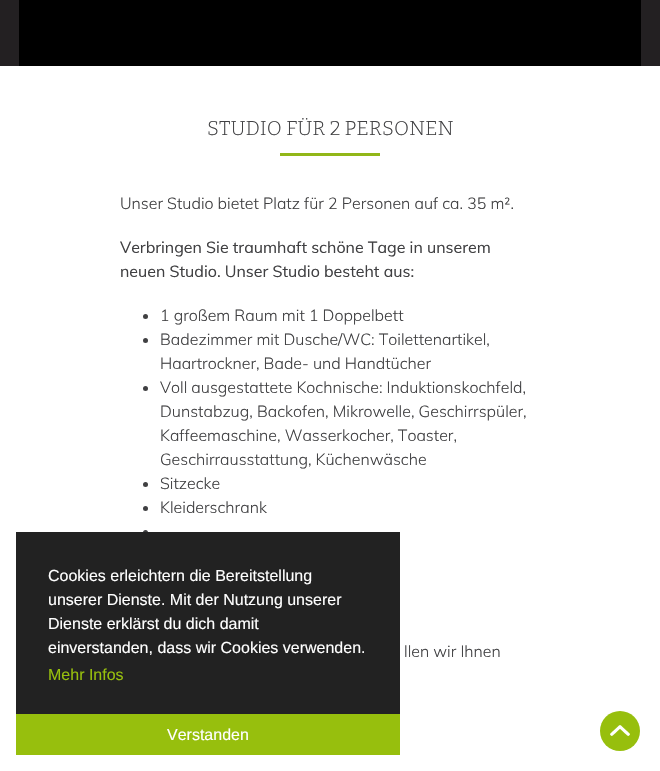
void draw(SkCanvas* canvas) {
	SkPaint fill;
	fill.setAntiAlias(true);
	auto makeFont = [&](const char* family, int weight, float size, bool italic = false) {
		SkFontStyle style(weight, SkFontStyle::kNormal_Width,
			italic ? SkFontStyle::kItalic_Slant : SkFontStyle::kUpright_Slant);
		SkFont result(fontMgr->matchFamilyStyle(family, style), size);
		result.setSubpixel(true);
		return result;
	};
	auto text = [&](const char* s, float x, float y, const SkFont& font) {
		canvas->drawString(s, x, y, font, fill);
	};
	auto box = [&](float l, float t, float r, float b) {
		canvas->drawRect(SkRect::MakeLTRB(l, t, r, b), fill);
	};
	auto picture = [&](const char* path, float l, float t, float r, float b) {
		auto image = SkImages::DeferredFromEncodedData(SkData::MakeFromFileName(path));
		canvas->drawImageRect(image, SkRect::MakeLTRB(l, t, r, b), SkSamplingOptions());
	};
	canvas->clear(0xFFFFFFFF);
	fill.setColor(0xFF232022);
	box(0, 0, 19, 66);
	fill.setColor(0xFF000000);
	box(19, 0, 641, 66);
	fill.setColor(0xFF232022);
	box(641, 0, 660, 66);
	fill.setColor(0xFF92B718);
	box(280, 153, 380, 156);
	fill.setColor(0xFF404042);
	canvas->drawCircle(145.5f, 316.5f, 2.5f, fill);
	canvas->drawCircle(145.5f, 340.5f, 2.5f, fill);
	canvas->drawCircle(145.5f, 388.5f, 2.5f, fill);
	canvas->drawCircle(145.5f, 484.5f, 2.5f, fill);
	canvas->drawCircle(145.5f, 508.5f, 2.5f, fill);
	canvas->drawCircle(145.5f, 532.5f, 2.5f, fill);
	fill.setColor(0xFF97BF0D);
	canvas->drawCircle(620, 731, 20, fill);
	picture("image0.png", 610, 725, 630, 736);
	fill.setColor(0xFF222222);
	box(16, 532, 400, 714);
	fill.setColor(0xFF97BF0D);
	box(16, 714, 400, 755);
	auto font1 = makeFont("Bitter", 300, 20);
	fill.setColor(0xFF404042);
	text("STUDIO FÜR 2 PERSONEN", 207, 135, font1);
	auto font2 = makeFont("Muli", 300, 16);
	text("Unser Studio bietet Platz für 2 Personen auf ca. 35 m².", 120, 209, font2);
	auto font3 = makeFont("Muli", 400, 16);
	text("Verbringen Sie traumhaft schöne Tage in unserem", 120, 253, font3);
	text("neuen Studio. Unser Studio besteht aus:", 120, 277, font3);
	text("1 großem Raum mit 1 Doppelbett", 160, 321, font2);
	text("Badezimmer mit Dusche/WC: Toilettenartikel,", 160, 345, font2);
	text("Haartrockner, Bade- und Handtücher", 160, 369, font2);
	text("Voll ausgestattete Kochnische: Induktionskochfeld,", 160, 393, font2);
	text("Dunstabzug, Backofen, Mikrowelle, Geschirrspüler,", 160, 417, font2);
	text("Kaffeemaschine, Wasserkocher, Toaster,", 160, 441, font2);
	text("Geschirrausstattung, Küchenwäsche", 160, 465, font2);
	text("Sitzecke", 160, 489, font2);
	text("Kleiderschrank", 160, 513, font2);
	text("llen wir Ihnen", 404, 657, font2);
	auto font4 = makeFont("Liberation Sans", 400, 16);
	fill.setColor(0xFFFFFFFF);
	text("Cookies erleichtern die Bereitstellung", 48, 581, font4);
	text("unserer Dienste. Mit der Nutzung unserer", 48, 605, font4);
	text("Dienste erklärst du dich damit", 48, 629, font4);
	text("einverstanden, dass wir Cookies verwenden.", 48, 653, font4);
	fill.setColor(0xFF97BF0D);
	text("Mehr Infos", 48, 680, font4);
	fill.setColor(0xFFFFFFFF);
	text("Verstanden", 167, 740, font4);
}
